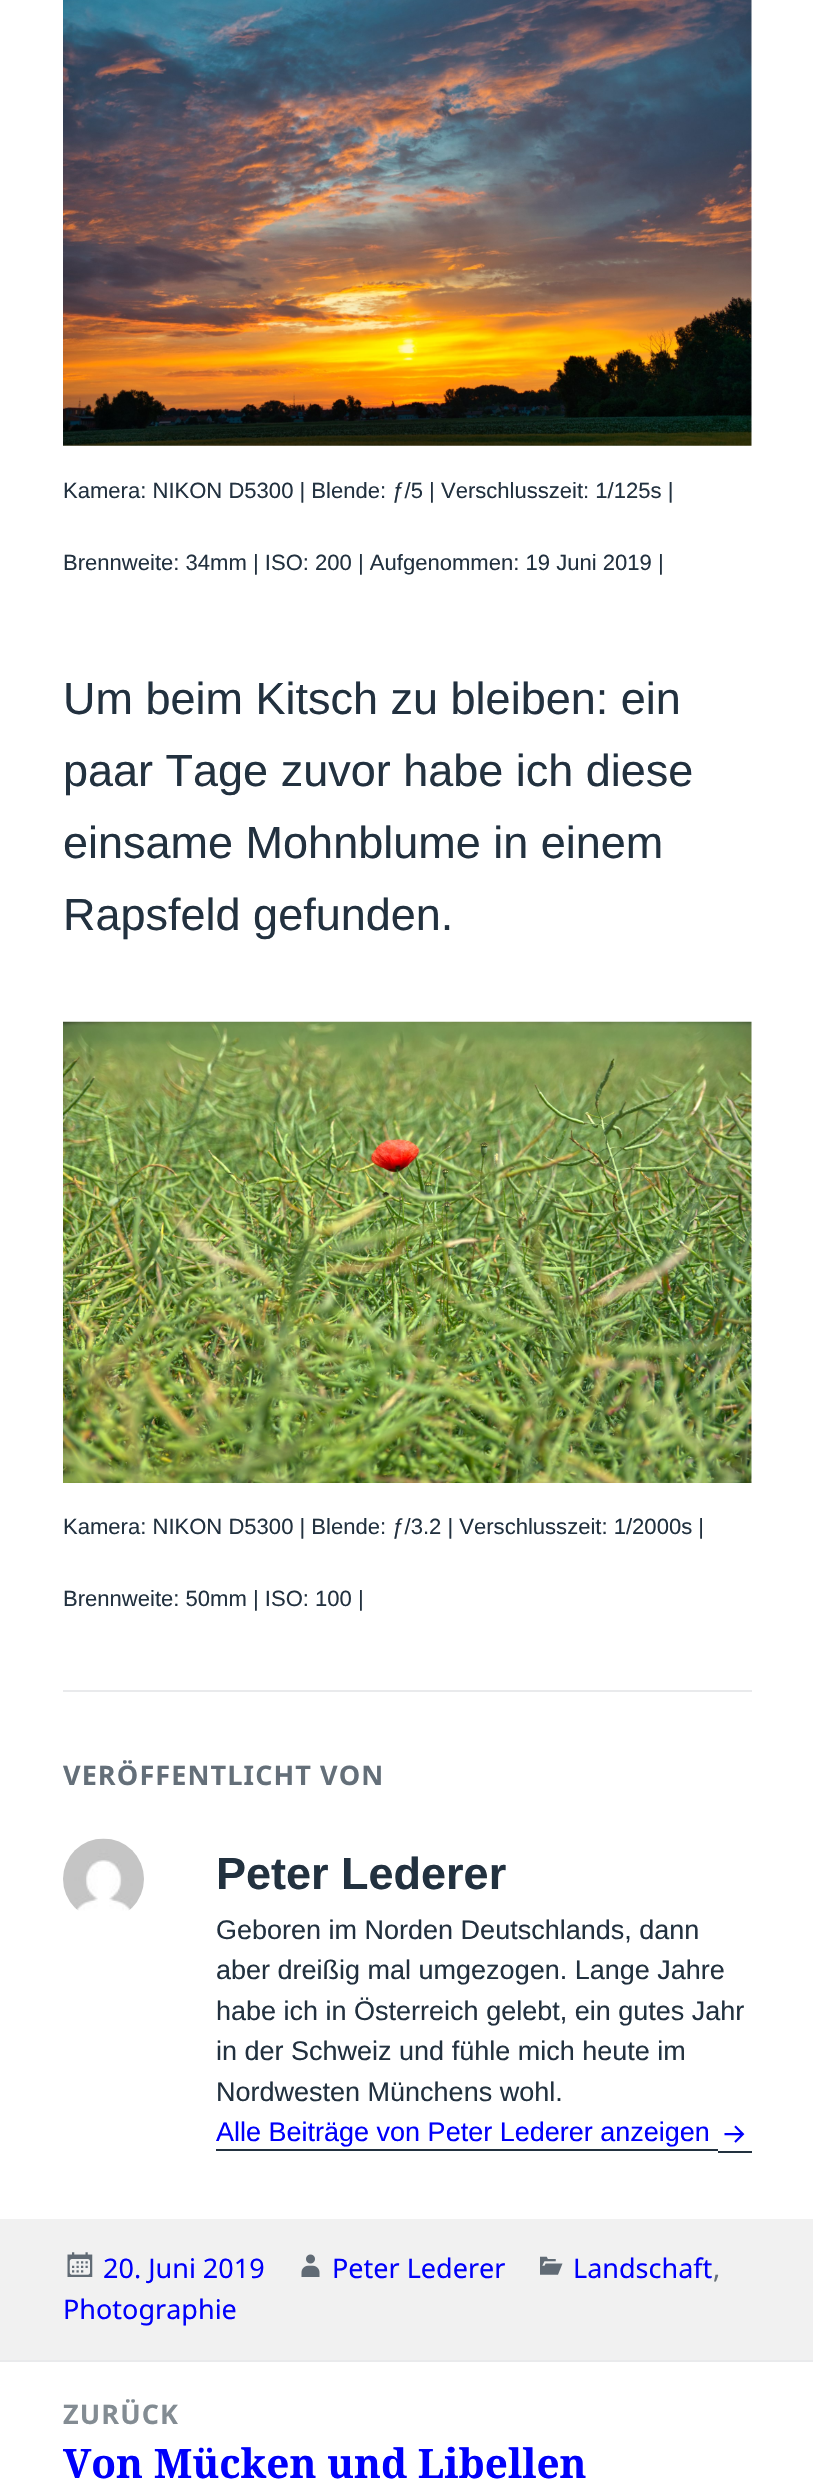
void draw(SkCanvas* canvas) {
	SkPaint fill;
	fill.setAntiAlias(true);
	auto makeFont = [&](const char* family, int weight, float size, bool italic = false) {
		SkFontStyle style(weight, SkFontStyle::kNormal_Width,
			italic ? SkFontStyle::kItalic_Slant : SkFontStyle::kUpright_Slant);
		SkFont result(fontMgr->matchFamilyStyle(family, style), size);
		result.setSubpixel(true);
		return result;
	};
	auto text = [&](const char* s, float x, float y, const SkFont& font) {
		canvas->drawString(s, x, y, font, fill);
	};
	auto spacedText = [&](const char* s, float x, float y, const SkFont& font, const SkPaint& ink, float letter, float word) {
		std::vector<SkGlyphID> glyphs(font.countText(s, strlen(s), SkTextEncoding::kUTF8));
		std::vector<float> xs(glyphs.size());
		font.textToGlyphs(s, strlen(s), SkTextEncoding::kUTF8, glyphs);
		font.getXPos(glyphs, xs, x);
		float extra = 0;
		for (size_t i = 0; i < glyphs.size(); i++) {
			xs[i] += extra;
			extra += letter + word * (glyphs[i] == font.unicharToGlyph(' '));
		}
		canvas->drawTextBlob(SkTextBlob::MakeFromPosHGlyphs(glyphs, xs, y, font), 0, 0, ink);
	};
	auto box = [&](float l, float t, float r, float b) {
		canvas->drawRect(SkRect::MakeLTRB(l, t, r, b), fill);
	};
	auto picture = [&](const char* path, float l, float t, float r, float b) {
		auto image = SkImages::DeferredFromEncodedData(SkData::MakeFromFileName(path));
		canvas->drawImageRect(image, SkRect::MakeLTRB(l, t, r, b), SkSamplingOptions());
	};
	canvas->clear(0xFFFFFFFF);
	picture("image0.png", 63, 0, 752, 446);
	picture("image1.png", 63, 1021, 752, 1483);
	fill.setColor(0xFFE9EAEC);
	box(63, 1690, 752, 1692);
	picture("image2.png", 63, 1838, 144, 1911);
	fill.setColor(0xFF22313F);
	box(216, 2149, 718, 2151);
	box(718, 2151, 752, 2153);
	picture("image3.png", 724, 2125, 745, 2143);
	fill.setColor(0xFFF1F1F1);
	box(0, 2219, 813, 2360);
	picture("image4.png", 540, 2256, 563, 2275);
	picture("image5.png", 67, 2252, 93, 2277);
	picture("image6.png", 301, 2254, 320, 2277);
	fill.setColor(0xFFE9EAEC);
	box(0, 2360, 813, 2362);
	auto font1 = makeFont("Liberation Sans", 400, 22.05f);
	fill.setColor(0xFF22313F);
	text("Kamera: NIKON D5300 | Blende: ƒ/5 | Verschlusszeit: 1/125s |", 63, 498, font1);
	text("Brennweite: 34mm | ISO: 200 | Aufgenommen: 19 Juni 2019 |", 63, 570, font1);
	auto font2 = makeFont("Liberation Sans", 400, 45);
	text("Um beim Kitsch zu bleiben: ein", 63, 714, font2);
	text("paar Tage zuvor habe ich diese", 63, 786, font2);
	text("einsame Mohnblume in einem", 63, 858, font2);
	text("Rapsfeld gefunden.", 63, 930, font2);
	text("Kamera: NIKON D5300 | Blende: ƒ/3.2 | Verschlusszeit: 1/2000s |", 63, 1534, font1);
	text("Brennweite: 50mm | ISO: 100 |", 63, 1606, font1);
	auto font3 = makeFont("Noto Sans", 700, 27);
	fill.setColor(0xFF646F79);
	spacedText("VERÖFFENTLICHT VON", 63, 1785, font3, fill, 1.1f, 0);
	auto font4 = makeFont("Liberation Sans", 700, 45);
	fill.setColor(0xFF22313F);
	text("Peter Lederer", 216, 1889, font4);
	auto font5 = makeFont("Liberation Sans", 400, 27);
	text("Geboren im Norden Deutschlands, dann", 216, 1939, font5);
	text("aber dreißig mal umgezogen. Lange Jahre", 216, 1979, font5);
	text("habe ich in Österreich gelebt, ein gutes Jahr", 216, 2020, font5);
	text("in der Schweiz und fühle mich heute im", 216, 2060, font5);
	text("Nordwesten Münchens wohl.", 216, 2101, font5);
	fill.setColor(0xFF0000FA);
	text("Alle Beiträge von Peter Lederer anzeigen", 216, 2141, font5);
	auto font6 = makeFont("Noto Sans", 400, 27);
	text("Landschaft", 573, 2278, font6);
	fill.setColor(0xFF646F79);
	text(",", 713, 2278, font6);
	fill.setColor(0xFF0000FA);
	text("Photographie", 63, 2319, font6);
	text("20. Juni 2019", 103, 2278, font6);
	text("Peter Lederer", 332, 2278, font6);
	fill.setColor(0xFF838C93);
	spacedText("ZURÜCK", 63, 2424, font3, fill, 1.1f, 0);
	auto font7 = makeFont("Noto Serif", 700, 40.5f);
	fill.setColor(0xFF0000FA);
	text("Von Mücken und Libellen", 63, 2478, font7);
}
